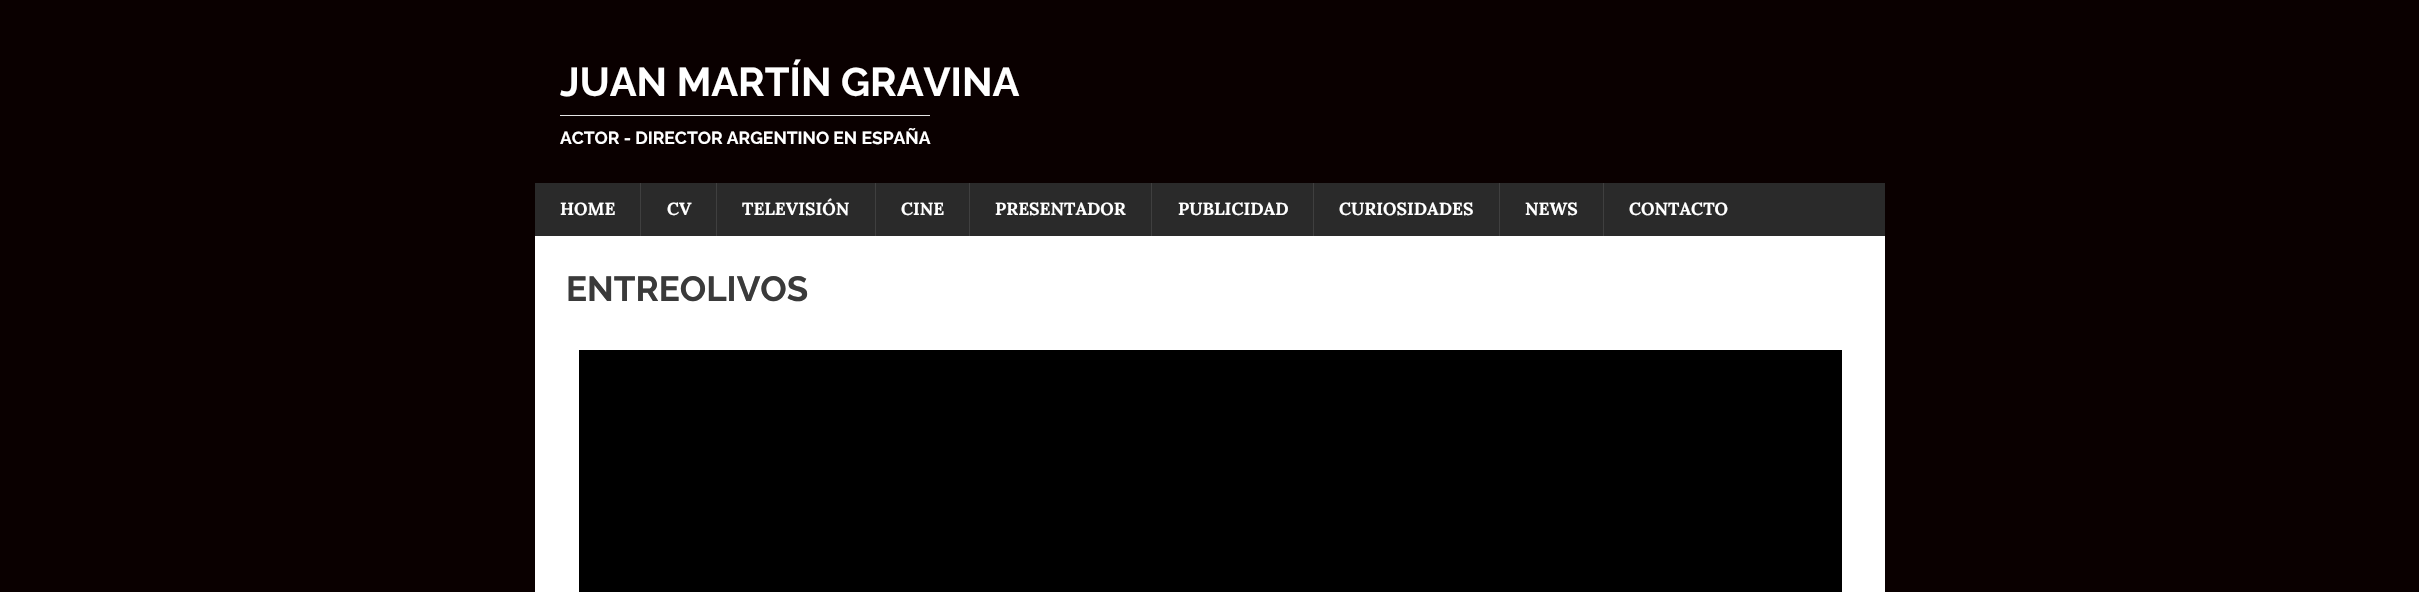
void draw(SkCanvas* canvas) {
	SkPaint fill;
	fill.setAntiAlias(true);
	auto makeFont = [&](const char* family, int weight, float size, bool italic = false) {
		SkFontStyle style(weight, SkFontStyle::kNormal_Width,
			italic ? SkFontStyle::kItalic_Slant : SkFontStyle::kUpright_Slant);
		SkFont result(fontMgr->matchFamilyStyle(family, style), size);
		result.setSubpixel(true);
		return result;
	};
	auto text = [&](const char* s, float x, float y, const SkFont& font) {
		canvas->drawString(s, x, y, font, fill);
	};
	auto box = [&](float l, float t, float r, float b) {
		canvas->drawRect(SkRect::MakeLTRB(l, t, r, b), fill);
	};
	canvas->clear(0xFF0A0000);
	fill.setColor(0xFFE5E5E5);
	box(560, 115, 930, 116);
	fill.setColor(0xFF2A2A2A);
	box(535, 183, 1885, 236);
	fill.setColor(0xFF3F3F3F);
	box(640, 183, 641, 236);
	box(716, 183, 717, 236);
	box(875, 183, 876, 236);
	box(969, 183, 970, 236);
	box(1151, 183, 1152, 236);
	box(1313, 183, 1314, 236);
	box(1499, 183, 1500, 236);
	box(1603, 183, 1604, 236);
	fill.setColor(0xFFFFFFFF);
	box(535, 236, 1885, 592);
	fill.setColor(0xFF000000);
	box(579, 350, 1842, 592);
	auto font1 = makeFont("Raleway", 700, 40);
	fill.setColor(0xFFFFFFFF);
	text("JUAN MARTÍN GRAVINA", 560, 96, font1);
	auto font2 = makeFont("Raleway", 700, 17.5f);
	text("ACTOR - DIRECTOR ARGENTINO EN ESPAÑA", 560, 144, font2);
	auto font3 = makeFont("Lora", 700, 17.5f);
	text("HOME", 560, 215, font3);
	text("CV", 667, 215, font3);
	text("TELEVISIÓN", 742, 215, font3);
	text("CINE", 901, 215, font3);
	text("PRESENTADOR", 995, 215, font3);
	text("PUBLICIDAD", 1178, 215, font3);
	text("CURIOSIDADES", 1339, 215, font3);
	text("NEWS", 1525, 215, font3);
	text("CONTACTO", 1629, 215, font3);
	auto font4 = makeFont("Raleway", 700, 35);
	fill.setColor(0xFF3A3A3A);
	text("ENTREOLIVOS", 566, 301, font4);
}
